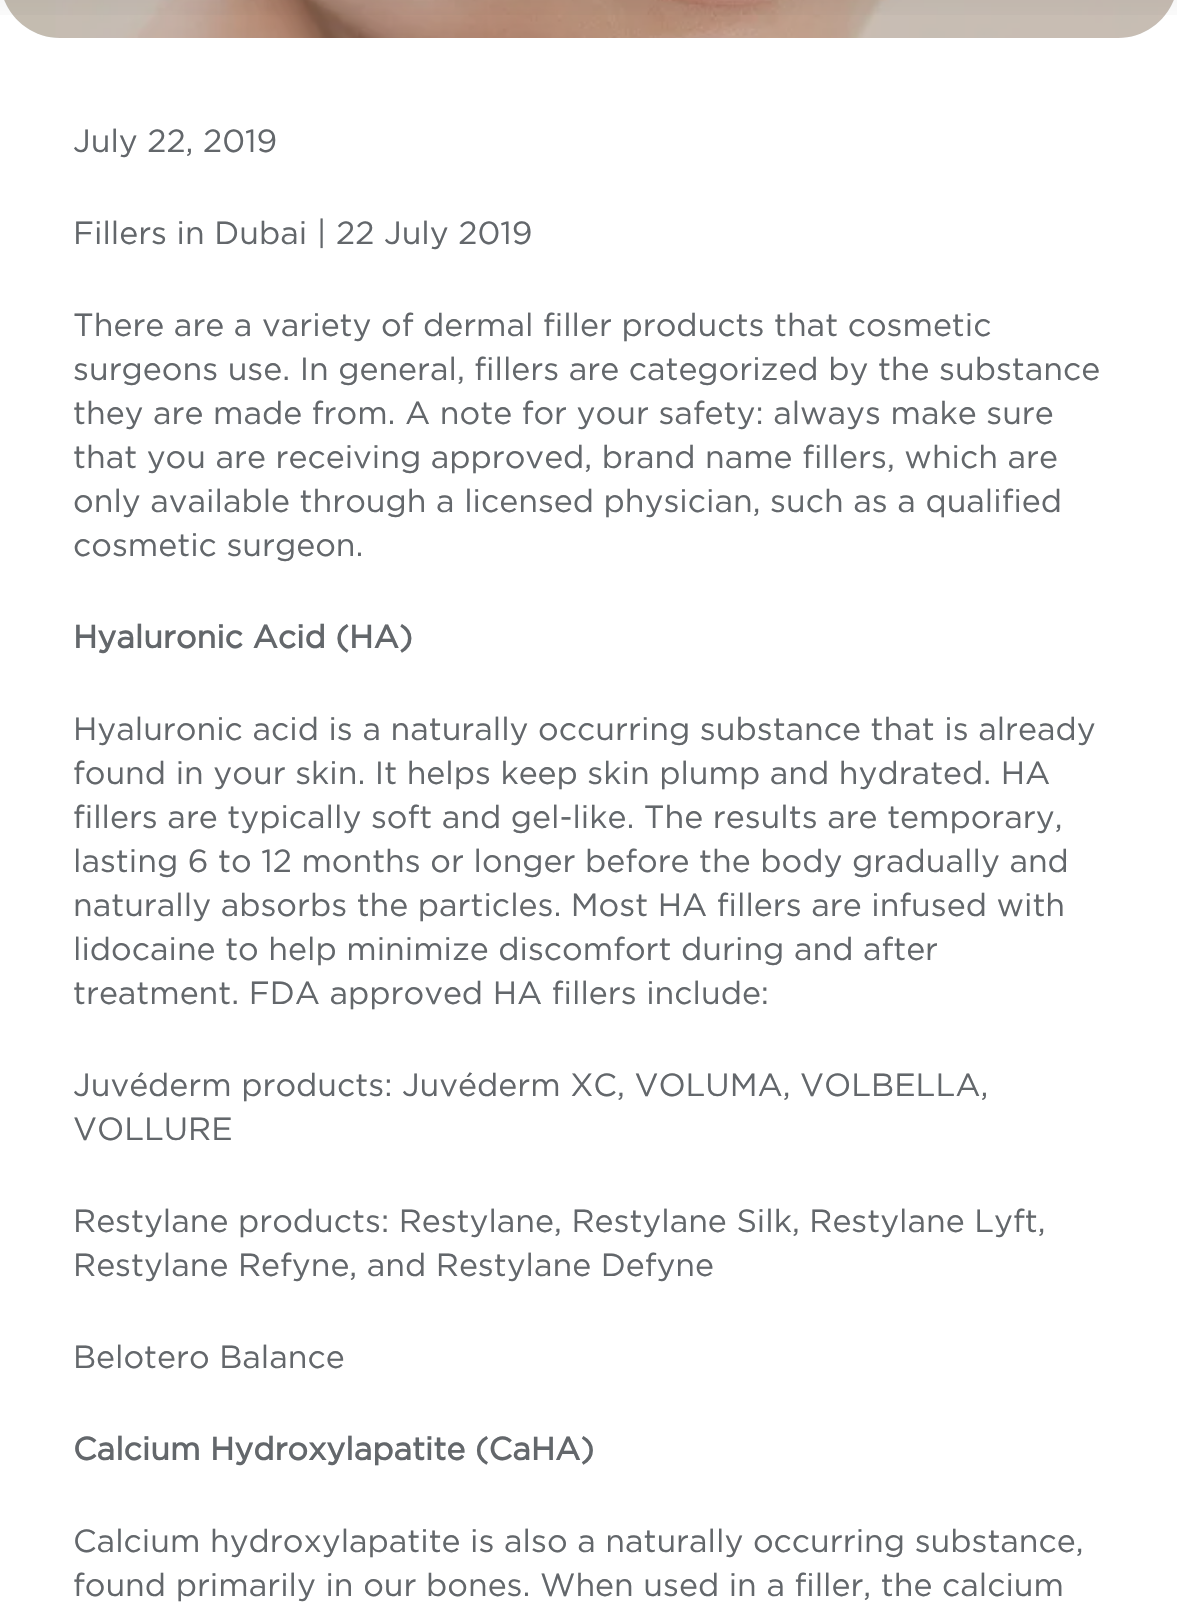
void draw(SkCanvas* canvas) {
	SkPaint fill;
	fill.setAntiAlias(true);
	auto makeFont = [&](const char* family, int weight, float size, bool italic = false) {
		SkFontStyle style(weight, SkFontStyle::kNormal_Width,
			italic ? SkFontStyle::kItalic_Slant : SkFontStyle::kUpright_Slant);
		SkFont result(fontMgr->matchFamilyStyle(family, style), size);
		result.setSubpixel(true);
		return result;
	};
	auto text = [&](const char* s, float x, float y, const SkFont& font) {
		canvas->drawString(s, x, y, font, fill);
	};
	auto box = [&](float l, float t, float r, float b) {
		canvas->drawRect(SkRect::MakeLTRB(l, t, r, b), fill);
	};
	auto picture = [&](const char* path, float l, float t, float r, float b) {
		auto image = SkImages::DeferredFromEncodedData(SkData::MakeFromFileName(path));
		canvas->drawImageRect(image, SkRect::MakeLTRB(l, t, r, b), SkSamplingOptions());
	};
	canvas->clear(0xFFFFFFFF);
	picture("image0.png", 4, 0, 1174, 38);
	fill.setColor(0x80A0836C);
	canvas->drawPath(SkPathBuilder().moveTo(0, -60).lineTo(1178, -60).lineTo(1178, -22).cubicTo(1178, 11, 1151, 38, 1118, 38).lineTo(60, 38).cubicTo(27, 38, 0, 11, 0, -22).close().detach(), fill);
	{
		const SkColor colors[] = {0x001C1917, 0x801C1917};
		const float stops[] = {0, 1};
		const SkPoint ends[] = {{589, 36}, {589, -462}};
		fill.setShader(SkGradientShader::MakeLinear(ends, colors, stops, 2, SkTileMode::kClamp));
		fill.setAlpha(255);
	}
	box(0, 0, 1177, 15);
	auto font1 = makeFont("Gotham", 400, 32);
	fill.setShader(nullptr);
	fill.setColor(0xFF63676B);
	text("July 22, 2019", 73, 152, font1);
	text("Fillers in Dubai | 22 July 2019", 73, 244, font1);
	text("There are a variety of dermal filler products that cosmetic", 73, 336, font1);
	text("surgeons use. In general, fillers are categorized by the substance", 73, 380, font1);
	text("they are made from. A note for your safety: always make sure", 73, 424, font1);
	text("that you are receiving approved, brand name fillers, which are", 73, 468, font1);
	text("only available through a licensed physician, such as a qualified", 73, 512, font1);
	text("cosmetic surgeon.", 73, 556, font1);
	auto font2 = makeFont("Gotham", 700, 32);
	text("Hyaluronic Acid (HA)", 73, 648, font2);
	text("Hyaluronic acid is a naturally occurring substance that is already", 73, 740, font1);
	text("found in your skin. It helps keep skin plump and hydrated. HA", 73, 784, font1);
	text("fillers are typically soft and gel-like. The results are temporary,", 73, 828, font1);
	text("lasting 6 to 12 months or longer before the body gradually and", 73, 872, font1);
	text("naturally absorbs the particles. Most HA fillers are infused with", 73, 916, font1);
	text("lidocaine to help minimize discomfort during and after", 73, 960, font1);
	text("treatment. FDA approved HA fillers include:", 73, 1004, font1);
	text("Juvéderm products: Juvéderm XC, VOLUMA, VOLBELLA,", 73, 1096, font1);
	text("VOLLURE", 73, 1140, font1);
	text("Restylane products: Restylane, Restylane Silk, Restylane Lyft,", 73, 1232, font1);
	text("Restylane Refyne, and Restylane Defyne", 73, 1276, font1);
	text("Belotero Balance", 73, 1368, font1);
	text("Calcium Hydroxylapatite (CaHA)", 73, 1460, font2);
	text("Calcium hydroxylapatite is also a naturally occurring substance,", 73, 1552, font1);
	text("found primarily in our bones. When used in a filler, the calcium", 73, 1596, font1);
}
